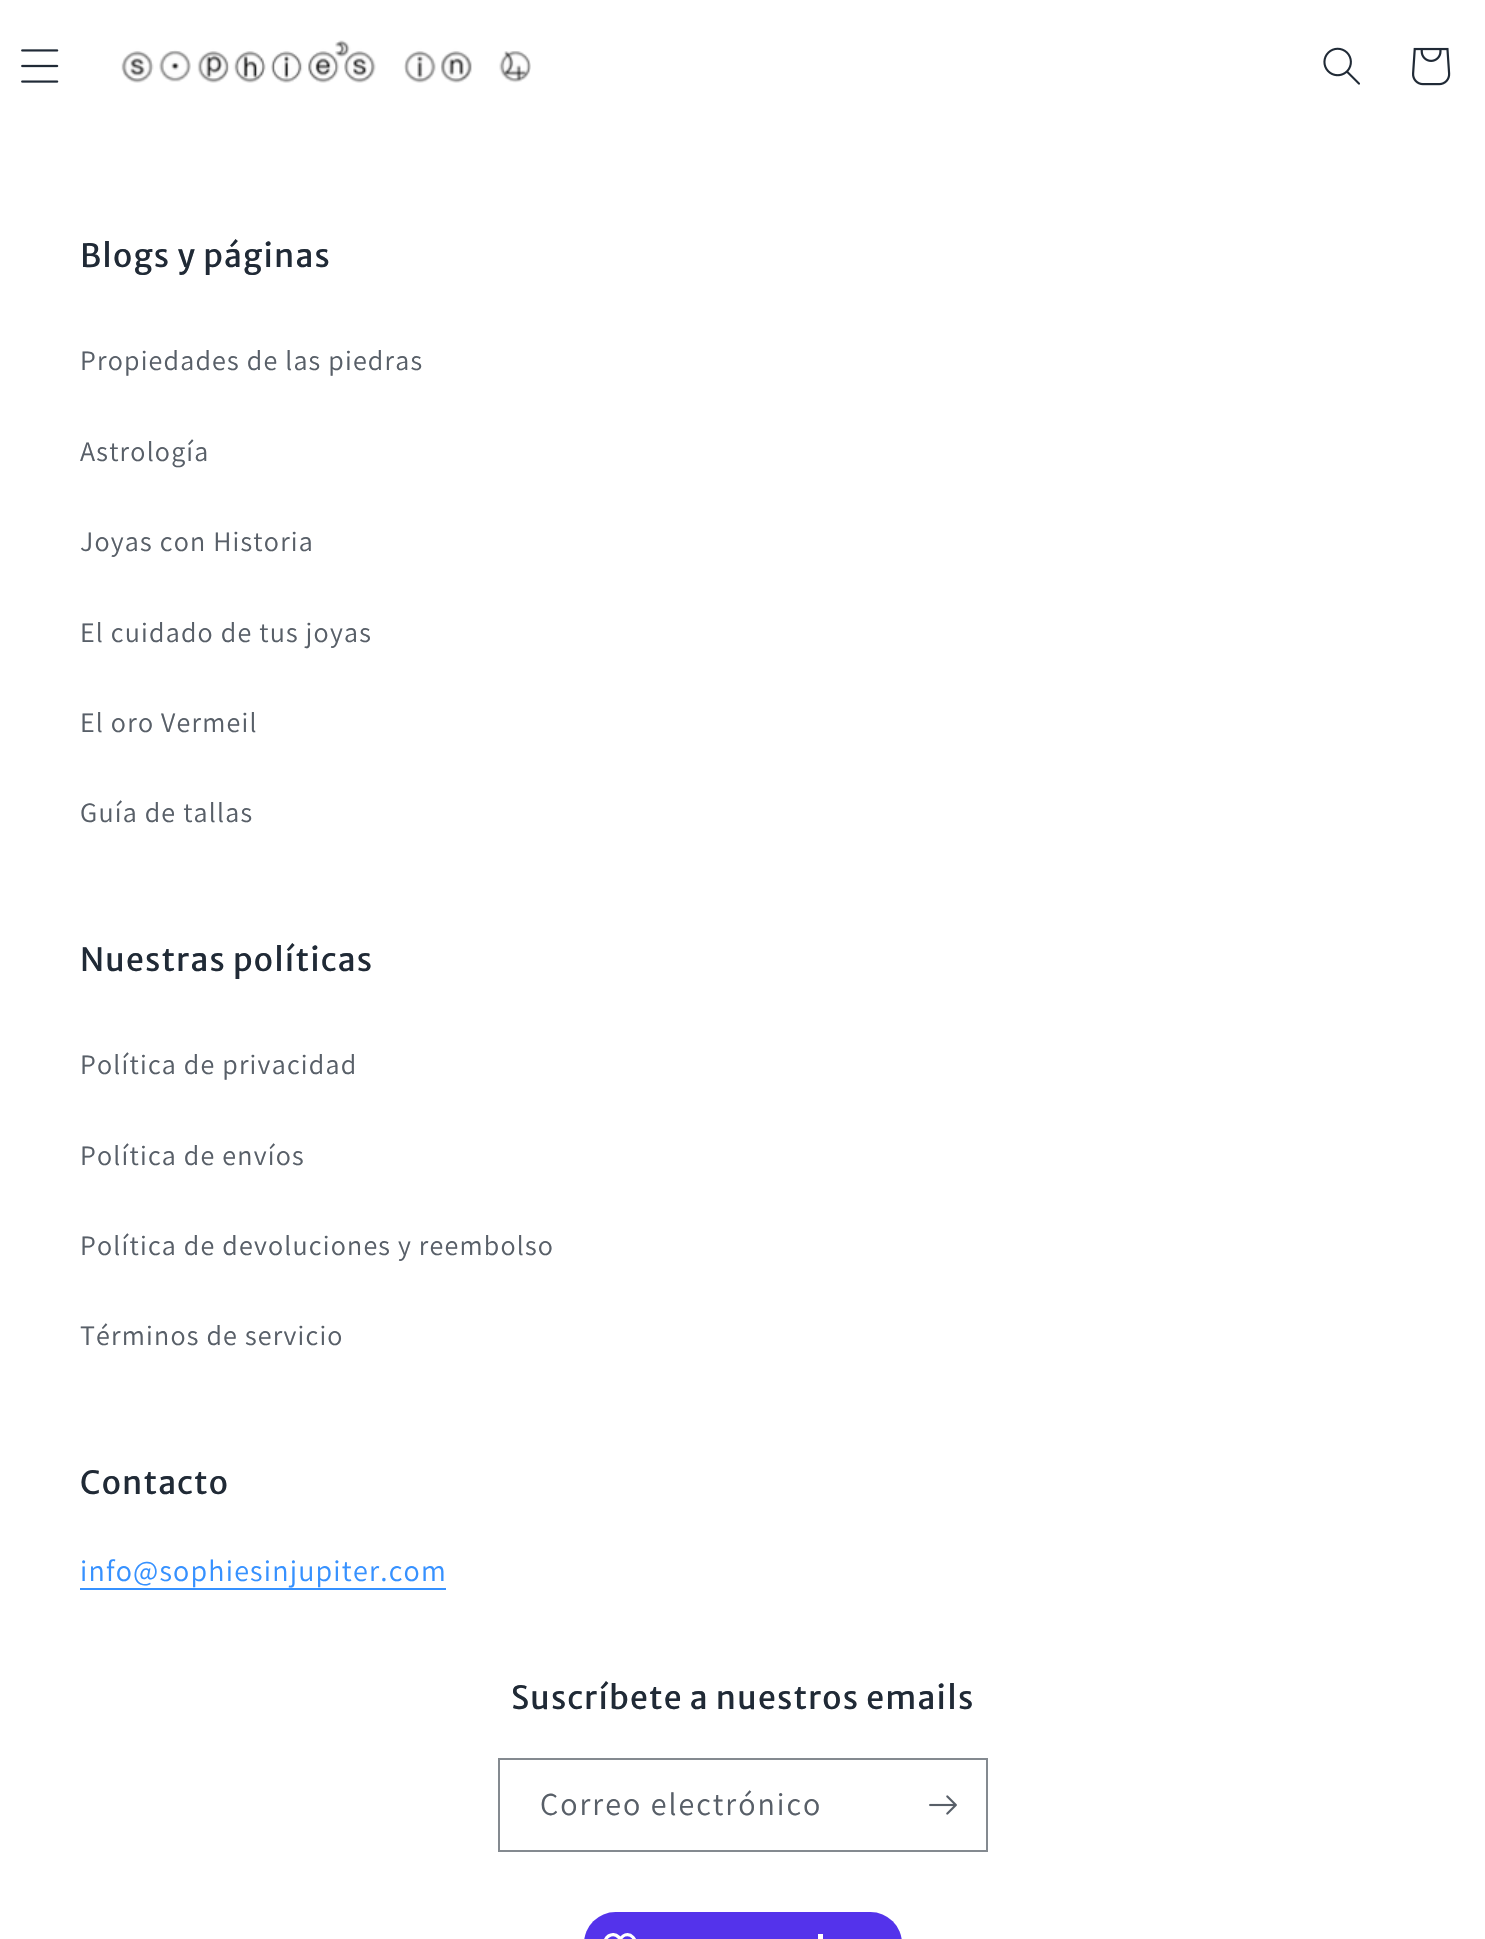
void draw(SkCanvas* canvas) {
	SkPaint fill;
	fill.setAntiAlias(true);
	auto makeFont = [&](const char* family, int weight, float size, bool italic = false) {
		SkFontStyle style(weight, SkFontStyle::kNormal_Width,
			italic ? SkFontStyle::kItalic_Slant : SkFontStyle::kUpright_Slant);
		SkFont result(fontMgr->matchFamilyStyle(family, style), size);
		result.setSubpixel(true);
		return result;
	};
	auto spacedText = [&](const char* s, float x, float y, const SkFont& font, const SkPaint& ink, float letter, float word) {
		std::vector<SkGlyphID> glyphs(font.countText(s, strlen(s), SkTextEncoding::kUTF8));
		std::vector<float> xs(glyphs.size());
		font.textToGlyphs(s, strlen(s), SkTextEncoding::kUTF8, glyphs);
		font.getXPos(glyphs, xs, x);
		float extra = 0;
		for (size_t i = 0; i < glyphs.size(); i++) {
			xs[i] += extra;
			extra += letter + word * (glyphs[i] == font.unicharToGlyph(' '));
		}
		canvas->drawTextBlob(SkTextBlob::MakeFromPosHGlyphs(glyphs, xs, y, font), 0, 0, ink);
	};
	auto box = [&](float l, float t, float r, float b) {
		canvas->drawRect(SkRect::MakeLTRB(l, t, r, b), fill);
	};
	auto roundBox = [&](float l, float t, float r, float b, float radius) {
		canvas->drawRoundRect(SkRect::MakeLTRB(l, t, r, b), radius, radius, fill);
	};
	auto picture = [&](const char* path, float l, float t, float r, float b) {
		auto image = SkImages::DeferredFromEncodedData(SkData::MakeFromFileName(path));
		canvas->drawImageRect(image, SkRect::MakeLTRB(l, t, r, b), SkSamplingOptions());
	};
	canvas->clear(0xFFFFFFFF);
	picture("image0.png", 21, 49, 59, 83);
	picture("image1.png", 121, 40, 531, 83);
	picture("image2.png", 1323, 47, 1360, 85);
	picture("image3.png", 1412, 47, 1451, 86);
	fill.setColor(0xFF3691FF);
	box(80, 1588, 446, 1590);
	fill.setStyle(SkPaint::kStroke_Style);
	fill.setStrokeWidth(2);
	fill.setColor(0xFF848A90);
	canvas->drawRect(SkRect::MakeLTRB(499, 1759, 987, 1851), fill);
	picture("image4.png", 929, 1795, 957, 1815);
	fill.setStyle(SkPaint::kFill_Style);
	fill.setColor(0xFF5433EB);
	roundBox(584, 1912, 902, 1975, 36);
	fill.setStyle(SkPaint::kStroke_Style);
	fill.setStrokeWidth(3.3f);
	fill.setStrokeJoin(SkPaint::kRound_Join);
	fill.setColor(0xFFFFFFFF);
	canvas->drawPath(SkPathBuilder().moveTo(618.5f, 1937).lineTo(620, 1939).cubicTo(621.5f, 1937.5f, 623, 1935.5f, 625, 1935).cubicTo(631, 1933, 637, 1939.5f, 634.5f, 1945.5f).cubicTo(633.5f, 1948.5f, 630.5f, 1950.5f, 628.5f, 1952.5f).lineTo(620, 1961.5f).lineTo(611.5f, 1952.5f).cubicTo(609.5f, 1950.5f, 606.5f, 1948.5f, 605.5f, 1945.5f).cubicTo(602.5f, 1937.5f, 612.5f, 1931, 618.5f, 1937).close().detach(), fill);
	fill.setStyle(SkPaint::kFill_Style);
	box(818, 1934, 823, 1939);
	auto font1 = makeFont("Merriweather Sans", 400, 32);
	fill.setColor(0xFF202A36);
	spacedText("Blogs y páginas", 80, 267, font1, fill, 1.2f, 0);
	auto font2 = makeFont("Assistant", 400, 28);
	fill.setColor(0xFF585F68);
	spacedText("Propiedades de las piedras", 80, 370, font2, fill, 1.2f, 0);
	spacedText("Astrología", 80, 461, font2, fill, 1.2f, 0);
	spacedText("Joyas con Historia", 80, 551, font2, fill, 1.2f, 0);
	spacedText("El cuidado de tus joyas", 80, 642, font2, fill, 1.2f, 0);
	spacedText("El oro Vermeil", 80, 732, font2, fill, 1.2f, 0);
	spacedText("Guía de tallas", 80, 822, font2, fill, 1.2f, 0);
	fill.setColor(0xFF202A36);
	spacedText("Nuestras políticas", 80, 971, font1, fill, 1.2f, 0);
	fill.setColor(0xFF585F68);
	spacedText("Política de privacidad", 80, 1074, font2, fill, 1.2f, 0);
	spacedText("Política de envíos", 80, 1165, font2, fill, 1.2f, 0);
	spacedText("Política de devoluciones y reembolso", 80, 1255, font2, fill, 1.2f, 0);
	spacedText("Términos de servicio", 80, 1345, font2, fill, 1.2f, 0);
	fill.setColor(0xFF202A36);
	spacedText("Contacto", 80, 1494, font1, fill, 1.2f, 0);
	auto font3 = makeFont("Assistant", 400, 30);
	fill.setColor(0xFF3691FF);
	spacedText("info@sophiesinjupiter.com", 80, 1581, font3, fill, 1.2f, 0);
	fill.setColor(0xFF202A36);
	spacedText("Suscríbete a nuestros emails", 511, 1709, font1, fill, 1.2f, 0);
	auto font4 = makeFont("Assistant", 400, 32);
	fill.setColor(0xFF585F68);
	spacedText("Correo electrónico", 540, 1815, font4, fill, 2, 0);
}
